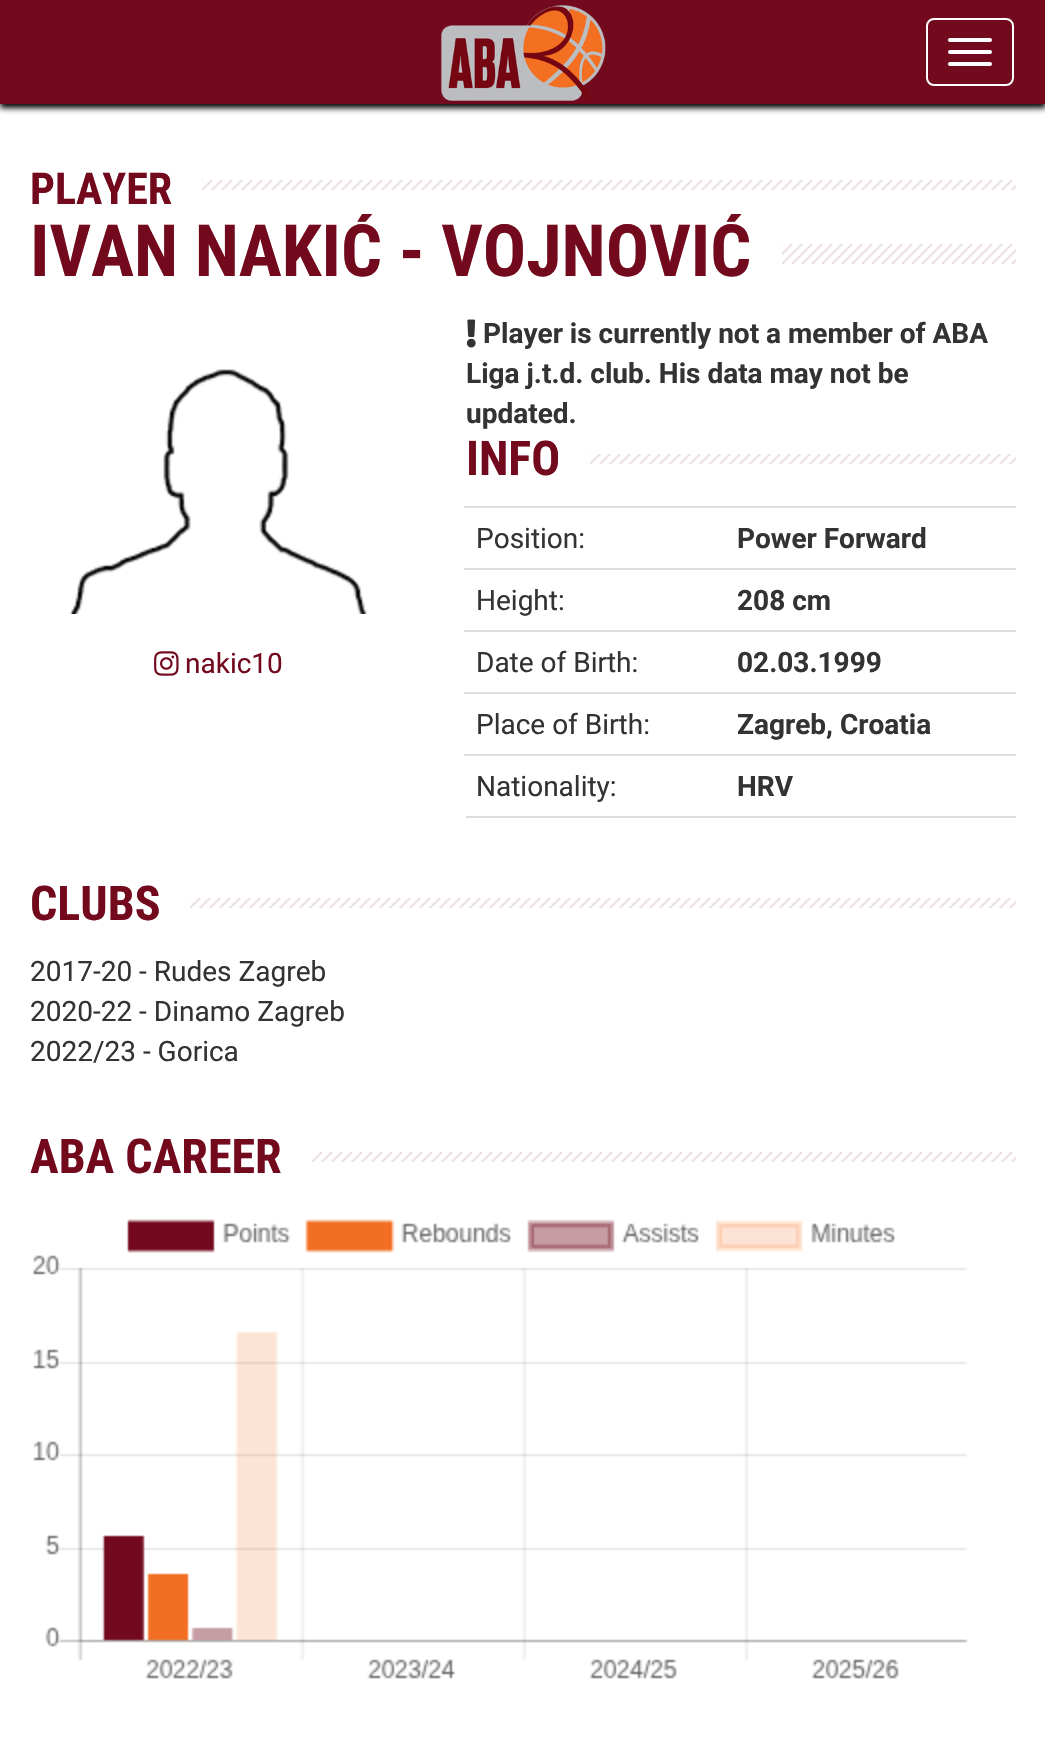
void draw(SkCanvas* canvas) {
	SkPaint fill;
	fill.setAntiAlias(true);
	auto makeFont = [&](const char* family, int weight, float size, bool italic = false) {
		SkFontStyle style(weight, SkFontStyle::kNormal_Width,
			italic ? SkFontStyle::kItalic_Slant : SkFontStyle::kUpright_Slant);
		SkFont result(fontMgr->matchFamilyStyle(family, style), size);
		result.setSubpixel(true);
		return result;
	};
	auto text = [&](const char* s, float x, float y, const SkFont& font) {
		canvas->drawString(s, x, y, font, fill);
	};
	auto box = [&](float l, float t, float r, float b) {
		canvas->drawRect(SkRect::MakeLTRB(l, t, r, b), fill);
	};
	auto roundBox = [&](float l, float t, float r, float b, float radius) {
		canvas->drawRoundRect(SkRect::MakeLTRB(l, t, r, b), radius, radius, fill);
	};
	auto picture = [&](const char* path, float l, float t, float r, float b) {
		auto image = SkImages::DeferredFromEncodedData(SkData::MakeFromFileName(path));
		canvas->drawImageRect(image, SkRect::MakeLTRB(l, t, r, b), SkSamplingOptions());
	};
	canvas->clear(0xFFFFFFFF);
	fill.setColor(0xFF000000);
	fill.setMaskFilter(SkMaskFilter::MakeBlur(kNormal_SkBlurStyle, 3));
	canvas->drawRect(SkRect::MakeLTRB(0, 4, 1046, 108), fill);
	fill.setMaskFilter(nullptr);
	fill.setColor(0xFF73091D);
	box(0, 0, 1045, 104);
	picture("image0.png", 441, 5, 606, 101);
	fill.setStyle(SkPaint::kStroke_Style);
	fill.setStrokeWidth(2);
	fill.setColor(0xFFFFFFFF);
	canvas->drawRoundRect(SkRect::MakeLTRB(927, 19, 1013, 85), 7, 7, fill);
	fill.setStyle(SkPaint::kFill_Style);
	roundBox(948, 38, 992, 42, 2);
	roundBox(948, 50, 992, 54, 2);
	roundBox(948, 62, 992, 66, 2);
	picture("image1.png", 202, 180, 1016, 190);
	picture("image2.png", 782, 244, 1016, 264);
	picture("image3.png", 69, 369, 367, 614);
	picture("image4.png", 154, 651, 179, 676);
	picture("image5.png", 466, 319, 476, 348);
	picture("image6.png", 590, 454, 1016, 464);
	fill.setColor(0xFFDDDDDD);
	box(466, 816, 1016, 818);
	box(464, 506, 1016, 508);
	box(464, 568, 1016, 570);
	box(464, 630, 1016, 632);
	box(464, 692, 1016, 694);
	box(464, 754, 1016, 756);
	picture("image7.png", 190, 898, 1016, 908);
	picture("image8.png", 312, 1152, 1016, 1162);
	picture("image9.png", 32, 1219, 968, 1679);
	auto font1 = makeFont("Roboto Condensed", 700, 44);
	fill.setColor(0xFF73091D);
	text("PLAYER", 30, 204, font1);
	canvas->save();
	canvas->clipRect(SkRect::MakeLTRB(30, 214, 1016, 294));
	auto font2 = makeFont("Roboto Condensed", 700, 72);
	text("IVAN NAKIĆ - VOJNOVIĆ", 30, 276, font2);
	canvas->restore();
	auto font3 = makeFont("Roboto", 400, 28);
	text("nakic10", 185, 673, font3);
	auto font4 = makeFont("Roboto", 700, 28);
	fill.setColor(0xFF333333);
	text("Player is currently not a member of ABA", 483, 343, font4);
	text("Liga j.t.d. club. His data may not be", 466, 383, font4);
	text("updated.", 466, 423, font4);
	auto font5 = makeFont("Roboto Condensed", 700, 48);
	fill.setColor(0xFF73091D);
	text("INFO", 466, 475, font5);
	fill.setColor(0xFF333333);
	text("Position:", 476, 548, font3);
	text("Power Forward", 737, 548, font4);
	text("Height:", 476, 610, font3);
	text("208 cm", 737, 610, font4);
	text("Date of Birth:", 476, 672, font3);
	text("02.03.1999", 737, 672, font4);
	text("Place of Birth:", 476, 734, font3);
	text("Zagreb, Croatia", 737, 734, font4);
	text("Nationality:", 476, 796, font3);
	text("HRV", 737, 796, font4);
	fill.setColor(0xFF73091D);
	text("CLUBS", 30, 920, font5);
	fill.setColor(0xFF333333);
	text("2017-20 - Rudes Zagreb", 30, 981, font3);
	text("2020-22 - Dinamo Zagreb", 30, 1021, font3);
	text("2022/23 - Gorica", 30, 1061, font3);
	fill.setColor(0xFF73091D);
	text("ABA CAREER", 30, 1173, font5);
}
